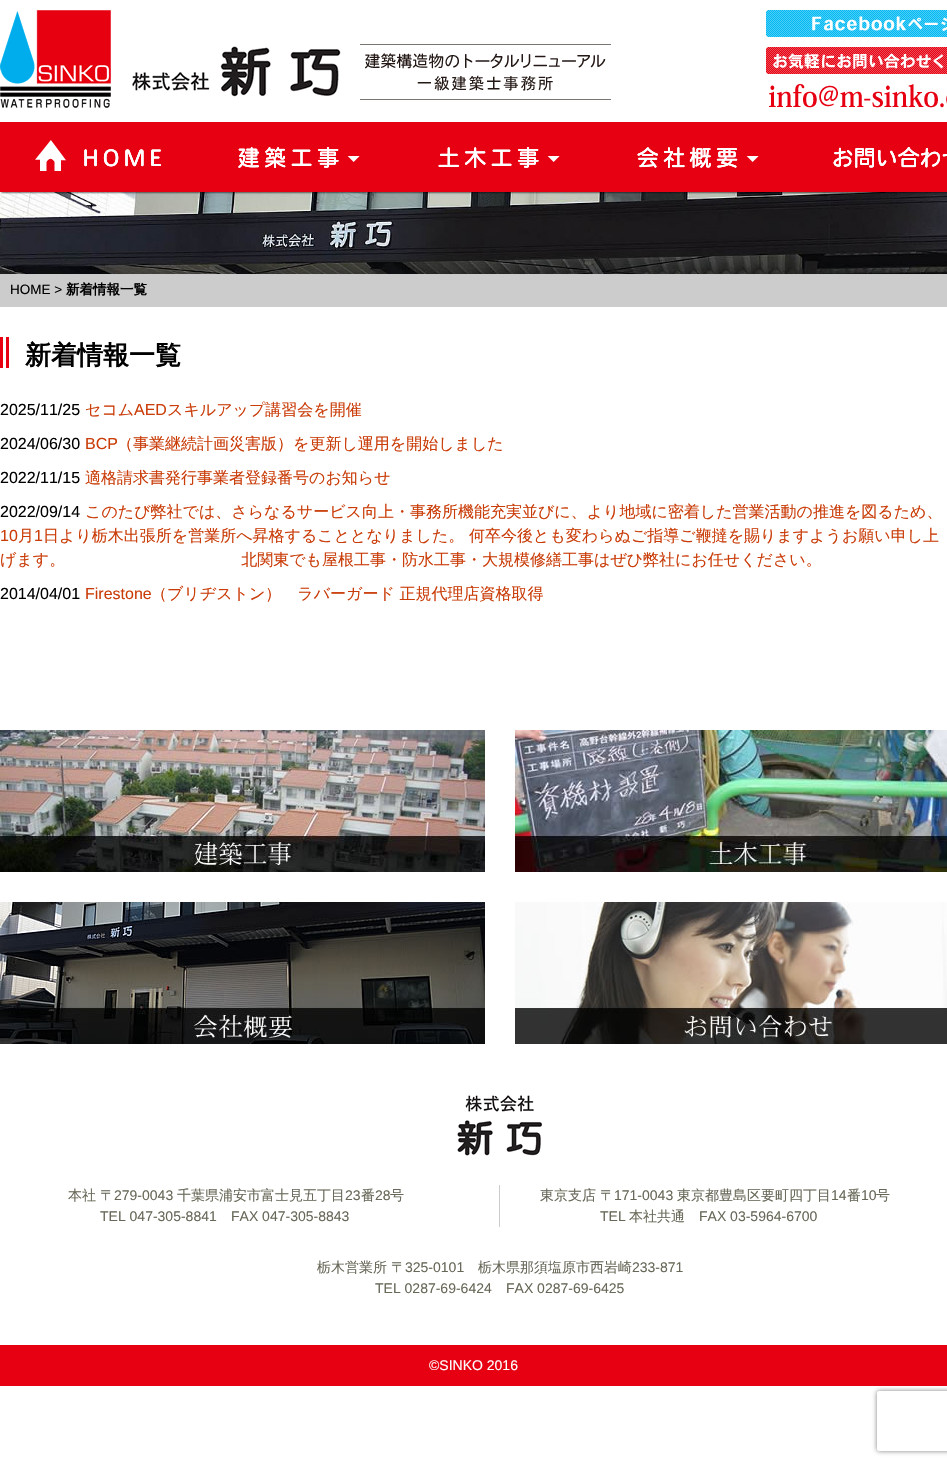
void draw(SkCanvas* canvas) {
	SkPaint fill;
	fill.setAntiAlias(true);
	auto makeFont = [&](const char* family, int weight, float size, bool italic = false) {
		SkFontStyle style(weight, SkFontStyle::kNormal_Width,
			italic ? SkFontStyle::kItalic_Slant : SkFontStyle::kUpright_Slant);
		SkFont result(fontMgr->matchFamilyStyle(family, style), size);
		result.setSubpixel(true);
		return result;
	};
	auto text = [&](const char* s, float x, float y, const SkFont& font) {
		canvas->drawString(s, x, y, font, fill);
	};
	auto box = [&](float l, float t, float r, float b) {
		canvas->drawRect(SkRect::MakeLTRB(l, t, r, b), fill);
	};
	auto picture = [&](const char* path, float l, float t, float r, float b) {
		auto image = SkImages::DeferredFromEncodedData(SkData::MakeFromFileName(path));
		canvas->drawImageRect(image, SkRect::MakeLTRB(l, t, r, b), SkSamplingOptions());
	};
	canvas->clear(0xFFFFFFFF);
	picture("image0.png", 0, 10, 341, 108);
	picture("image1.png", 360, 44, 611, 100);
	picture("image2.png", 766, 10, 947, 37);
	picture("image3.png", 766, 47, 947, 108);
	fill.setColor(0xFFE60012);
	box(0, 122, 947, 192);
	picture("image4.png", 35, 140, 161, 171);
	picture("image5.png", 238, 147, 360, 168);
	picture("image6.png", 438, 147, 560, 168);
	picture("image7.png", 637, 147, 759, 168);
	picture("image8.png", 833, 147, 947, 168);
	picture("image9.png", 0, 192, 947, 274);
	fill.setColor(0xFFCCCCCC);
	box(0, 274, 947, 307);
	fill.setColor(0xFFE60012);
	box(0, 337, 3, 368);
	box(6, 337, 9, 368);
	picture("image10.png", 0, 730, 485, 872);
	picture("image11.png", 515, 730, 947, 872);
	picture("image12.png", 0, 902, 485, 1044);
	picture("image13.png", 515, 902, 947, 1044);
	picture("image14.png", 457, 1095, 542, 1156);
	fill.setColor(0xFFCCCCCC);
	box(499, 1185, 500, 1227);
	fill.setColor(0xFFE60012);
	box(0, 1345, 947, 1386);
	canvas->save();
	canvas->clipPath(SkPathBuilder(SkPathFillType::kEvenOdd).moveTo(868, 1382).lineTo(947, 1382).lineTo(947, 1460).lineTo(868, 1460).close().moveTo(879, 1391).lineTo(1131, 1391).cubicTo(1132, 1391, 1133, 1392, 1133, 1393).lineTo(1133, 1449).cubicTo(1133, 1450, 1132, 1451, 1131, 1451).lineTo(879, 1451).cubicTo(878, 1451, 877, 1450, 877, 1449).lineTo(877, 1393).cubicTo(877, 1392, 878, 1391, 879, 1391).close().detach(), true);
	fill.setColor(0xFF808080);
	fill.setMaskFilter(SkMaskFilter::MakeBlur(kNormal_SkBlurStyle, 2.5f));
	canvas->drawRoundRect(SkRect::MakeLTRB(877, 1391, 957, 1451), 2, 2, fill);
	fill.setMaskFilter(nullptr);
	canvas->restore();
	auto font1 = makeFont("Liberation Sans", 400, 13.5f);
	fill.setColor(0xFF000000);
	text("HOME >", 10, 294, font1);
	auto font2 = makeFont("WenQuanYi Zen Hei", 700, 13.5f);
	text("新着情報一覧", 66, 294, font2);
	auto font3 = makeFont("WenQuanYi Zen Hei", 700, 26);
	text("新着情報一覧", 25, 364, font3);
	auto font4 = makeFont("Liberation Sans", 400, 16);
	text("2025/11/25", 0, 415, font4);
	auto font5 = makeFont("WenQuanYi Zen Hei", 500, 16);
	fill.setColor(0xFFCA3C08);
	text("セコム", 85, 415, font5);
	text("AED", 134, 415, font4);
	text("スキルアップ講習会を開催", 167, 415, font5);
	fill.setColor(0xFF000000);
	text("2024/06/30", 0, 449, font4);
	fill.setColor(0xFFCA3C08);
	text("BCP", 85, 449, font4);
	text("（事業継続計画災害版）を更新し運用を開始しました", 117, 449, font5);
	fill.setColor(0xFF000000);
	text("2022/11/15", 0, 483, font4);
	fill.setColor(0xFFCA3C08);
	text("適格請求書発行事業者登録番号のお知らせ", 85, 483, font5);
	fill.setColor(0xFF000000);
	text("2022/09/14", 0, 517, font4);
	fill.setColor(0xFFCA3C08);
	text("このたび弊社では、さらなるサービス向上・事務所機能充実並びに、より地域に密着した営業活動の推進を図るため、", 85, 517, font5);
	text("10", 0, 541, font4);
	text("月", 18, 541, font5);
	text("1", 34, 541, font4);
	text("日より栃木出張所を営業所へ昇格することとなりました。 何卒今後とも変わらぬご指導ご鞭撻を賜りますようお願い申し上", 43, 541, font5);
	text("げます。　　　　　　　　　　　北関東でも屋根工事・防水工事・大規模修繕工事はぜひ弊社にお任せください。", 0, 565, font5);
	fill.setColor(0xFF000000);
	text("2014/04/01", 0, 599, font4);
	fill.setColor(0xFFCA3C08);
	text("Firestone", 85, 599, font4);
	text("（ブリヂストン）　ラバーガード 正規代理店資格取得", 151, 599, font5);
	auto font6 = makeFont("WenQuanYi Zen Hei", 500, 14);
	fill.setColor(0xFF686758);
	text("本社 〒", 68, 1200, font6);
	auto font7 = makeFont("Liberation Sans", 400, 14);
	text("279-0043", 114, 1200, font7);
	text("千葉県浦安市富士見五丁目", 177, 1200, font6);
	text("23", 345, 1200, font7);
	text("番", 361, 1200, font6);
	text("28", 375, 1200, font7);
	text("号", 390, 1200, font6);
	text("TEL 047-305-8841", 100, 1221, font7);
	text("FAX 047-305-8843", 231, 1221, font7);
	text("東京支店 〒", 540, 1200, font6);
	text("171-0043", 614, 1200, font7);
	text("東京都豊島区要町四丁目", 677, 1200, font6);
	text("14", 831, 1200, font7);
	text("番", 847, 1200, font6);
	text("10", 861, 1200, font7);
	text("号", 876, 1200, font6);
	text("TEL", 600, 1221, font7);
	text("本社共通", 629, 1221, font6);
	text("FAX 03-5964-6700", 699, 1221, font7);
	text("栃木営業所 〒", 317, 1272, font6);
	text("325-0101", 405, 1272, font7);
	text("栃木県那須塩原市西岩崎", 478, 1272, font6);
	text("233-871", 632, 1272, font7);
	text("TEL 0287-69-6424", 375, 1293, font7);
	text("FAX 0287-69-6425", 506, 1293, font7);
	fill.setColor(0xFFFFFFFF);
	text("©SINKO 2016", 429, 1370, font7);
}
